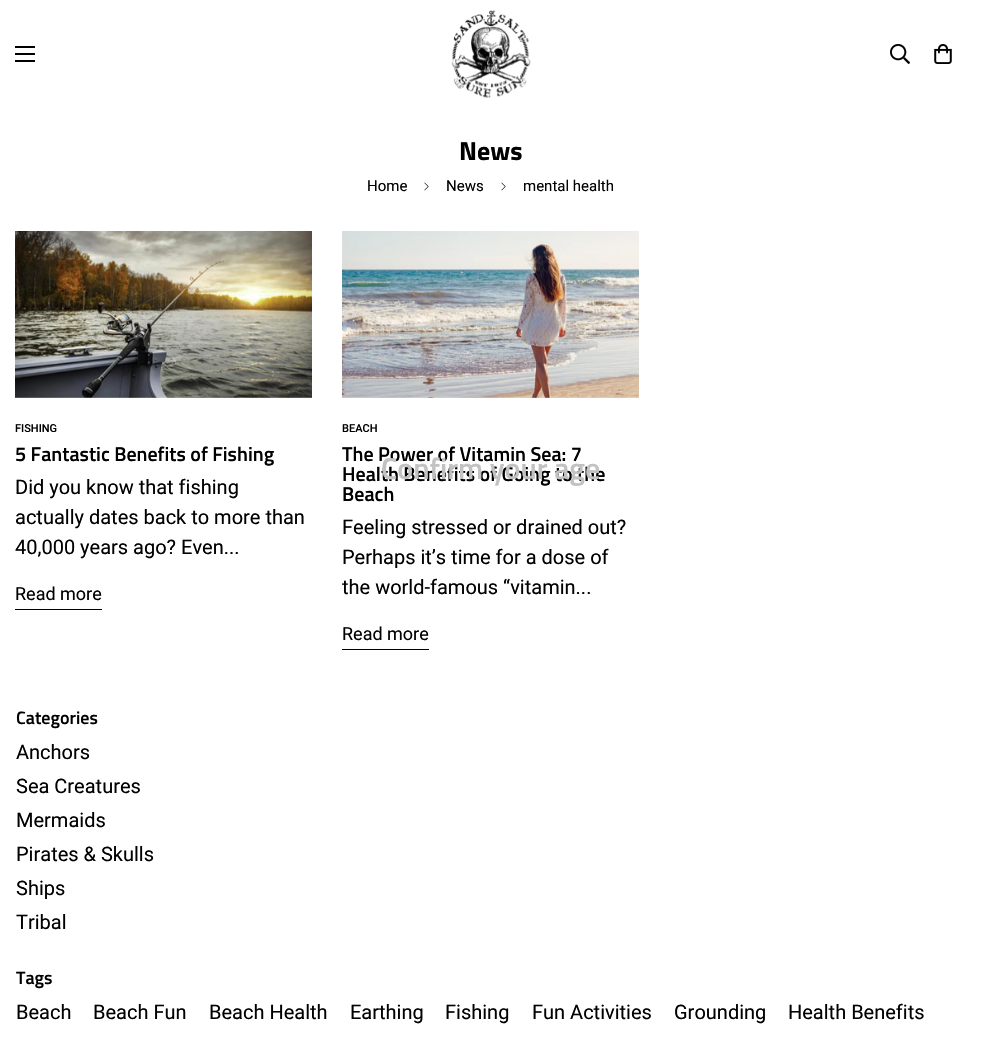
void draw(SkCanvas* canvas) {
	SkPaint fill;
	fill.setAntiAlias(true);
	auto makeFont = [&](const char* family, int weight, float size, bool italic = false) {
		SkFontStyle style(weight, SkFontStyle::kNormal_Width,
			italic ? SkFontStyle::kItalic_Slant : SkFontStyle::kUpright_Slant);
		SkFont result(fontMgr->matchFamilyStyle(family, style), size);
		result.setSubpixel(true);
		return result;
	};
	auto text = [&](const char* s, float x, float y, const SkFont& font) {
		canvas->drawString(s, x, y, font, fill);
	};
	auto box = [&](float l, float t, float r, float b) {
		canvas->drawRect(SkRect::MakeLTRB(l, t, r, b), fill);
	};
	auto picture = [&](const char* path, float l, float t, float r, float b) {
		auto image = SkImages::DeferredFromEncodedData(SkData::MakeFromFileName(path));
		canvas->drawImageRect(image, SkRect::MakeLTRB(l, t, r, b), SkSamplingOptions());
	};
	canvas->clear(0xFFFFFFFF);
	fill.setColor(0xFF000000);
	box(15, 53, 35, 55);
	box(15, 46, 35, 48);
	box(15, 60, 35, 62);
	picture("image0.png", 451, 10, 531, 98);
	picture("image1.png", 890, 44, 910, 64);
	picture("image2.png", 934, 44, 952, 64);
	picture("image3.png", 424, 182, 429, 191);
	picture("image3.png", 501, 182, 506, 191);
	picture("image4.png", 15, 231, 312, 398);
	box(15, 609, 102, 610);
	picture("image5.png", 342, 231, 639, 398);
	box(342, 649, 429, 650);
	auto font1 = makeFont("Titillium Web", 700, 26);
	text("News", 459, 160, font1);
	auto font2 = makeFont("Roboto", 400, 15);
	text("Home", 367, 191, font2);
	text("News", 446, 191, font2);
	text("mental health", 523, 191, font2);
	auto font3 = makeFont("Roboto", 500, 11);
	text("FISHING", 15, 432, font3);
	auto font4 = makeFont("Titillium Web", 600, 20);
	text("5 Fantastic Benefits of Fishing", 15, 461, font4);
	auto font5 = makeFont("Roboto", 400, 20);
	text("Did you know that fishing", 15, 494, font5);
	text("actually dates back to more than", 15, 524, font5);
	text("40,000 years ago? Even...", 15, 554, font5);
	auto font6 = makeFont("Roboto", 400, 18);
	text("Read more", 15, 600, font6);
	text("BEACH", 342, 432, font3);
	text("The Power of Vitamin Sea: 7", 342, 461, font4);
	text("Health Benefits of Going to the", 342, 481, font4);
	text("Beach", 342, 501, font4);
	text("Feeling stressed or drained out?", 342, 534, font5);
	text("Perhaps it’s time for a dose of", 342, 564, font5);
	text("the world-famous “vitamin...", 342, 594, font5);
	text("Read more", 342, 640, font6);
	auto font7 = makeFont("Titillium Web", 600, 18);
	text("Categories", 16, 724, font7);
	text("Anchors", 16, 759, font5);
	text("Sea Creatures", 16, 793, font5);
	text("Mermaids", 16, 827, font5);
	text("Pirates & Skulls", 16, 861, font5);
	text("Ships", 16, 895, font5);
	text("Tribal", 16, 929, font5);
	text("Tags", 16, 984, font7);
	text("Beach", 16, 1019, font5);
	text("Beach Fun", 93, 1019, font5);
	text("Beach Health", 209, 1019, font5);
	text("Earthing", 350, 1019, font5);
	text("Fishing", 445, 1019, font5);
	text("Fun Activities", 532, 1019, font5);
	text("Grounding", 674, 1019, font5);
	text("Health Benefits", 788, 1019, font5);
	auto font8 = makeFont("Titillium Web", 600, 30);
	fill.setColor(0xFFC2C2C2);
	text("Confirm your age", 381, 479, font8);
}
